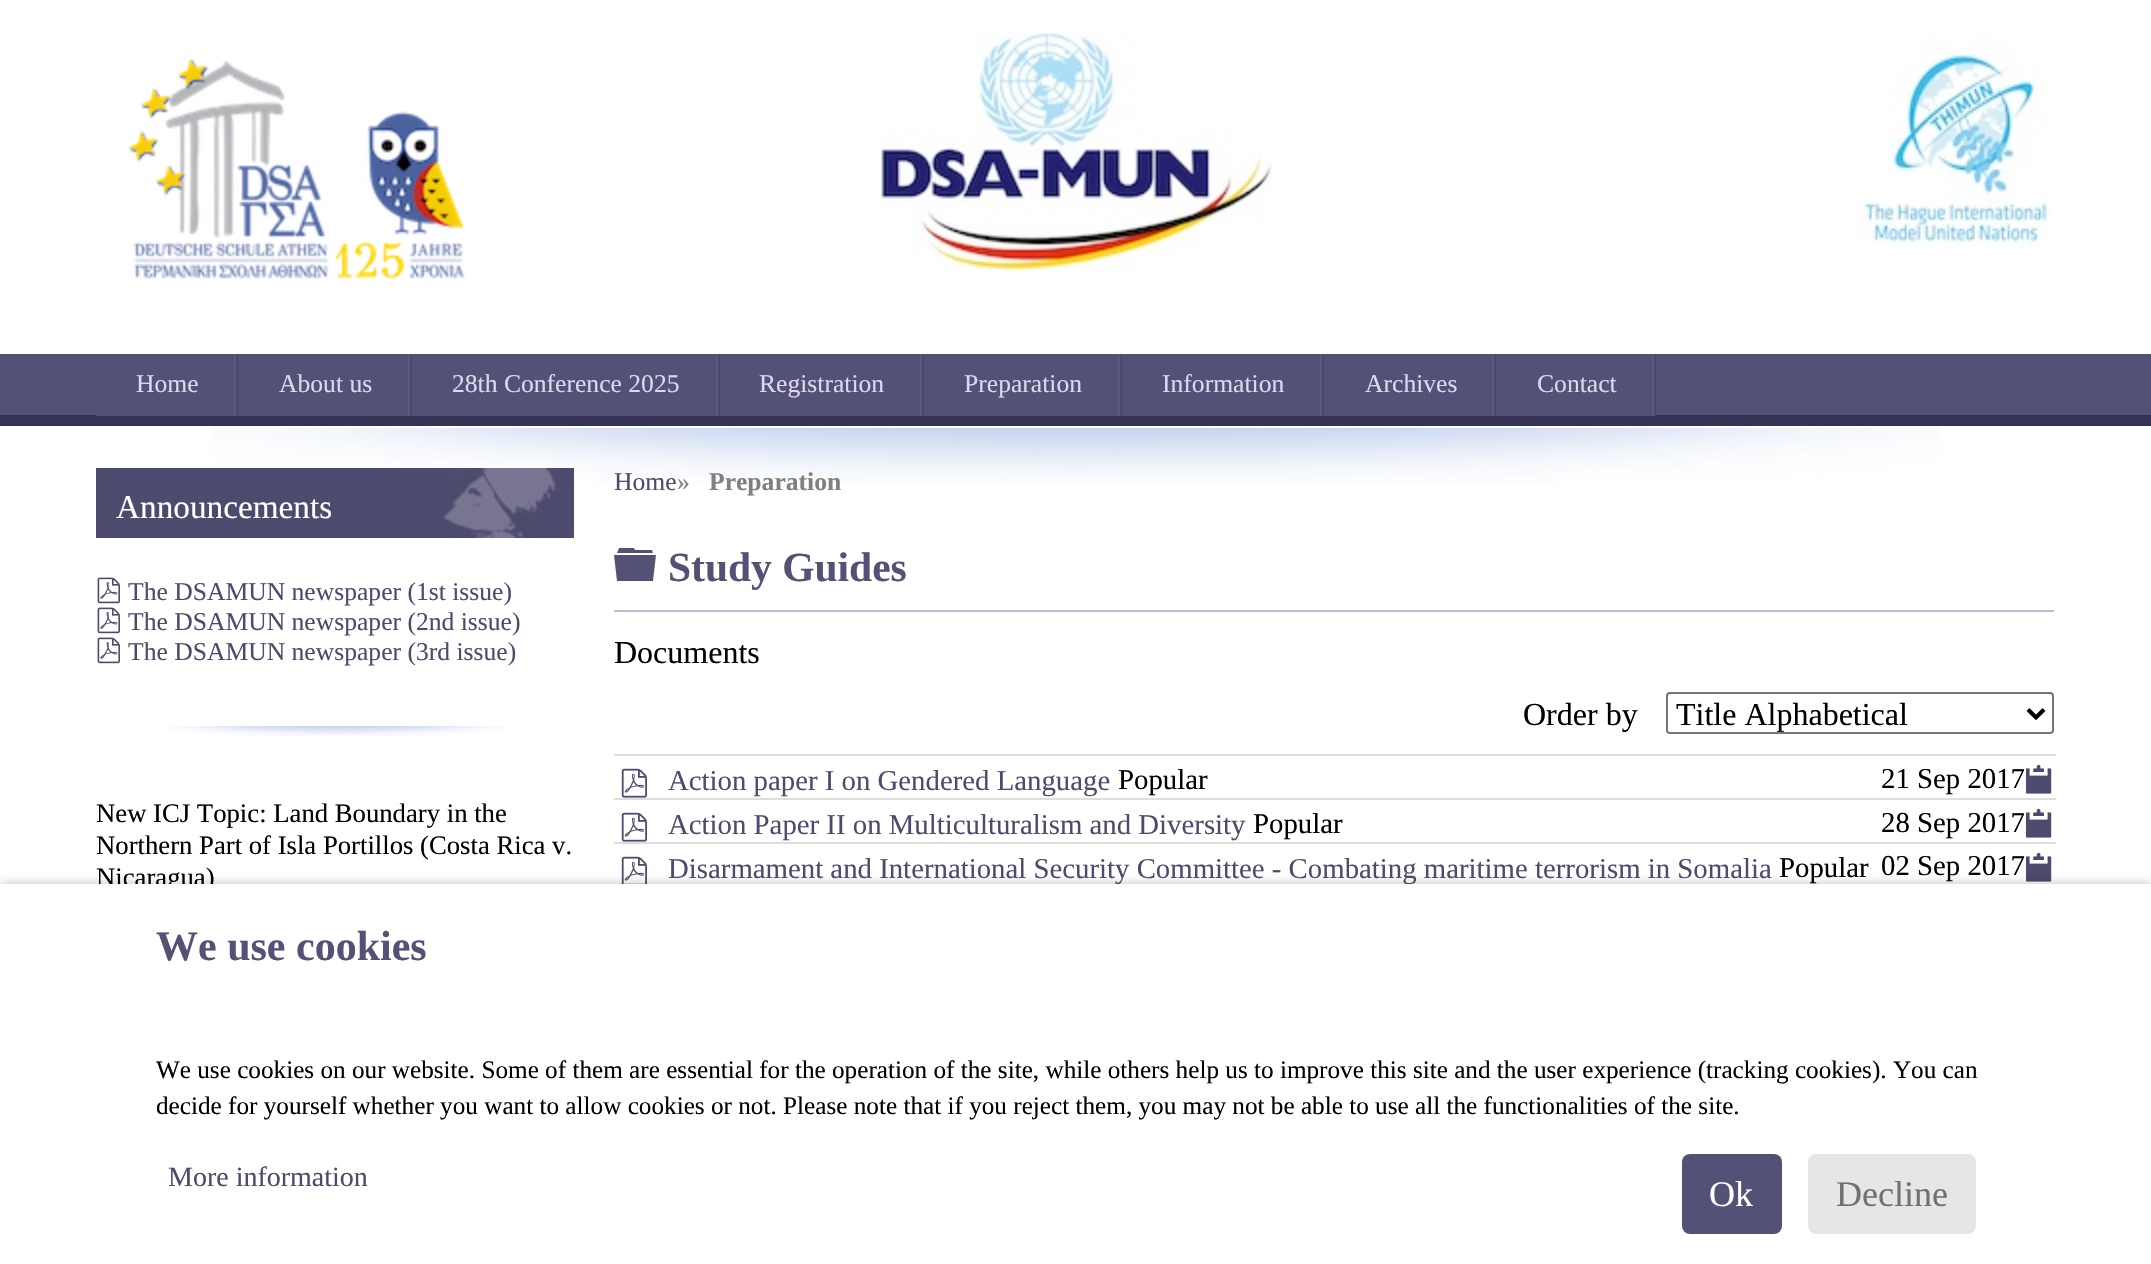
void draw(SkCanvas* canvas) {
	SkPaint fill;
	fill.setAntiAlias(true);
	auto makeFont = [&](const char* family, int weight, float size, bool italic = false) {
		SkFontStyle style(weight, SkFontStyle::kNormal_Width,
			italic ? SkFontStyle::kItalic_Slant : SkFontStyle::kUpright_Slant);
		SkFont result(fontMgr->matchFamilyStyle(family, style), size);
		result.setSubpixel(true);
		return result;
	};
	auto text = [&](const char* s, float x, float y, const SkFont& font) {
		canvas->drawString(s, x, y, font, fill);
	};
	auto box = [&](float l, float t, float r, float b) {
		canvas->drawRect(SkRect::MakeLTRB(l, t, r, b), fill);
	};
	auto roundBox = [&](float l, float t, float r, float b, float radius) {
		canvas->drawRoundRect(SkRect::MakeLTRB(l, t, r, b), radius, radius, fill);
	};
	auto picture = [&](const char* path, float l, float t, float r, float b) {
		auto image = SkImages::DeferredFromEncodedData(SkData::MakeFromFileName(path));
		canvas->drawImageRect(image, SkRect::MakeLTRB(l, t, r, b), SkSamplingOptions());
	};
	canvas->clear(0xFFFFFFFF);
	picture("image0.png", 127, 58, 465, 279);
	picture("image1.png", 880, 30, 1272, 270);
	picture("image2.png", 1856, 35, 2051, 248);
	fill.setColor(0xFF545176);
	box(0, 354, 2151, 415);
	fill.setColor(0xFF353355);
	box(0, 415, 2151, 426);
	fill.setColor(0xFF545176);
	box(96, 415, 234, 416);
	picture("image3.png", 234, 354, 238, 416);
	box(238, 415, 408, 416);
	picture("image3.png", 408, 354, 412, 416);
	box(412, 415, 716, 416);
	picture("image3.png", 716, 354, 720, 416);
	box(720, 415, 920, 416);
	picture("image3.png", 920, 354, 924, 416);
	box(924, 415, 1118, 416);
	picture("image3.png", 1118, 354, 1122, 416);
	box(1122, 415, 1320, 416);
	picture("image3.png", 1320, 354, 1324, 416);
	box(1324, 415, 1492, 416);
	picture("image3.png", 1492, 354, 1496, 416);
	box(1496, 415, 1652, 416);
	picture("image3.png", 1652, 354, 1656, 416);
	picture("image4.png", 211, 428, 1941, 483);
	fill.setColor(0xFF4D4B6D);
	box(96, 468, 574, 538);
	picture("image5.png", 443, 468, 560, 538);
	picture("image6.png", 169, 726, 506, 737);
	picture("image7.png", 97, 577, 120, 604);
	picture("image7.png", 97, 607, 120, 634);
	picture("image7.png", 97, 637, 120, 664);
	fill.setColor(0xFFBEBBD3);
	box(614, 610, 2054, 612);
	fill.setColor(0xFF545176);
	canvas->drawPath(SkPathBuilder().moveTo(614, 555).lineTo(656, 555).lineTo(653, 581).lineTo(617, 581).close().moveTo(652, 550).lineTo(653, 553).lineTo(617, 553).lineTo(619, 548).lineTo(634, 548).lineTo(635, 550).close().detach(), fill);
	fill.setStyle(SkPaint::kStroke_Style);
	fill.setStrokeWidth(2);
	fill.setColor(0xFF767676);
	canvas->drawRoundRect(SkRect::MakeLTRB(1667, 693, 2053, 733), 3, 3, fill);
	fill.setStrokeWidth(4);
	fill.setColor(0xFF000000);
	canvas->drawPath(SkPathBuilder().moveTo(2028, 709.5f).lineTo(2036, 717.5f).lineTo(2044, 709.5f).detach(), fill);
	fill.setStyle(SkPaint::kFill_Style);
	fill.setColor(0xFFDDDDDD);
	box(614, 754, 2056, 756);
	picture("image8.png", 2026, 764, 2052, 794);
	picture("image9.png", 621, 768, 647, 798);
	box(614, 798, 2056, 800);
	picture("image8.png", 2026, 808, 2052, 838);
	picture("image9.png", 621, 812, 647, 842);
	box(614, 842, 2056, 844);
	picture("image8.png", 2026, 852, 2052, 882);
	picture("image10.png", 621, 856, 647, 884);
	fill.setColor(0x40000000);
	fill.setMaskFilter(SkMaskFilter::MakeBlur(kNormal_SkBlurStyle, 5));
	canvas->drawRect(SkRect::MakeLTRB(0, 884, 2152, 1264), fill);
	fill.setMaskFilter(nullptr);
	auto font1 = makeFont("Liberation Serif", 400, 25.6f);
	fill.setColor(0xFFDBD9EF);
	text("Home", 136, 392, font1);
	text("About us", 279, 392, font1);
	text("28th Conference 2025", 452, 392, font1);
	text("Registration", 759, 392, font1);
	text("Preparation", 964, 392, font1);
	text("Information", 1162, 392, font1);
	text("Archives", 1365, 392, font1);
	text("Contact", 1537, 392, font1);
	auto font2 = makeFont("Liberation Serif", 400, 33.25f);
	fill.setColor(0xFFFFFFFF);
	text("Announcements", 116, 518, font2);
	fill.setColor(0xFF4D4B6D);
	text("The DSAMUN newspaper (1st issue)", 128, 600, font1);
	text("The DSAMUN newspaper (2nd issue)", 128, 630, font1);
	text("The DSAMUN newspaper (3rd issue)", 128, 660, font1);
	auto font3 = makeFont("Liberation Serif", 400, 26.7f);
	fill.setColor(0xFF000000);
	text("New ICJ Topic: Land Boundary in the", 96, 822, font3);
	text("Northern Part of Isla Portillos (Costa Rica v.", 96, 854, font3);
	text("Nicaragua)", 96, 886, font3);
	fill.setColor(0xFF4D4B6D);
	text("Home", 614, 490, font1);
	fill.setColor(0xFF808080);
	text("»", 677, 490, font1);
	auto font4 = makeFont("Liberation Serif", 700, 25.6f);
	text("Preparation", 709, 490, font4);
	auto font5 = makeFont("Liberation Serif", 700, 41.5f);
	fill.setColor(0xFF545176);
	text("Study Guides", 668, 581, font5);
	auto font6 = makeFont("Liberation Serif", 400, 32);
	fill.setColor(0xFF000000);
	text("Documents", 614, 663, font6);
	text("Order by", 1523, 725, font6);
	text("Title Alphabetical", 1676, 725, font6);
	auto font7 = makeFont("Liberation Serif", 400, 28.8f);
	fill.setColor(0xFF4D4B6D);
	text("Action paper I on Gendered Language", 668, 790, font7);
	fill.setColor(0xFF000000);
	text("Popular", 1118, 789, font7);
	text("21 Sep 2017", 1881, 788, font7);
	fill.setColor(0xFF4D4B6D);
	text("Action Paper II on Multiculturalism and Diversity", 668, 834, font7);
	fill.setColor(0xFF000000);
	text("Popular", 1253, 833, font7);
	text("28 Sep 2017", 1881, 832, font7);
	fill.setColor(0xFF4D4B6D);
	text("Disarmament and International Security Committee - Combating maritime terrorism in Somalia", 668, 878, font7);
	fill.setColor(0xFF000000);
	text("Popular", 1779, 877, font7);
	text("02 Sep 2017", 1881, 875, font7);
	fill.setColor(0xFFFFFFFF);
	box(0, 884, 2151, 1264);
	auto font8 = makeFont("Liberation Serif", 700, 42);
	fill.setColor(0xFF545176);
	text("We use cookies", 156, 960, font8);
	auto font9 = makeFont("Liberation Serif", 400, 25.2f);
	fill.setColor(0xFF000000);
	text("We use cookies on our website. Some of them are essential for the operation of the site, while others help us to improve this site and the user experience (tracking cookies). You can", 156, 1078, font9);
	text("decide for yourself whether you want to allow cookies or not. Please note that if you reject them, you may not be able to use all the functionalities of the site.", 156, 1114, font9);
	auto font10 = makeFont("Liberation Serif", 400, 28);
	fill.setColor(0xFF4D4B6D);
	text("More information", 168, 1186, font10);
	fill.setColor(0xFF545176);
	roundBox(1682, 1154, 1782, 1234, 8);
	auto font11 = makeFont("Liberation Serif", 400, 36);
	fill.setColor(0xFFFFFFFF);
	text("Ok", 1709, 1206, font11);
	fill.setColor(0xFFE6E6E6);
	roundBox(1808, 1154, 1976, 1234, 8);
	fill.setColor(0xFF707070);
	text("Decline", 1836, 1206, font11);
}
